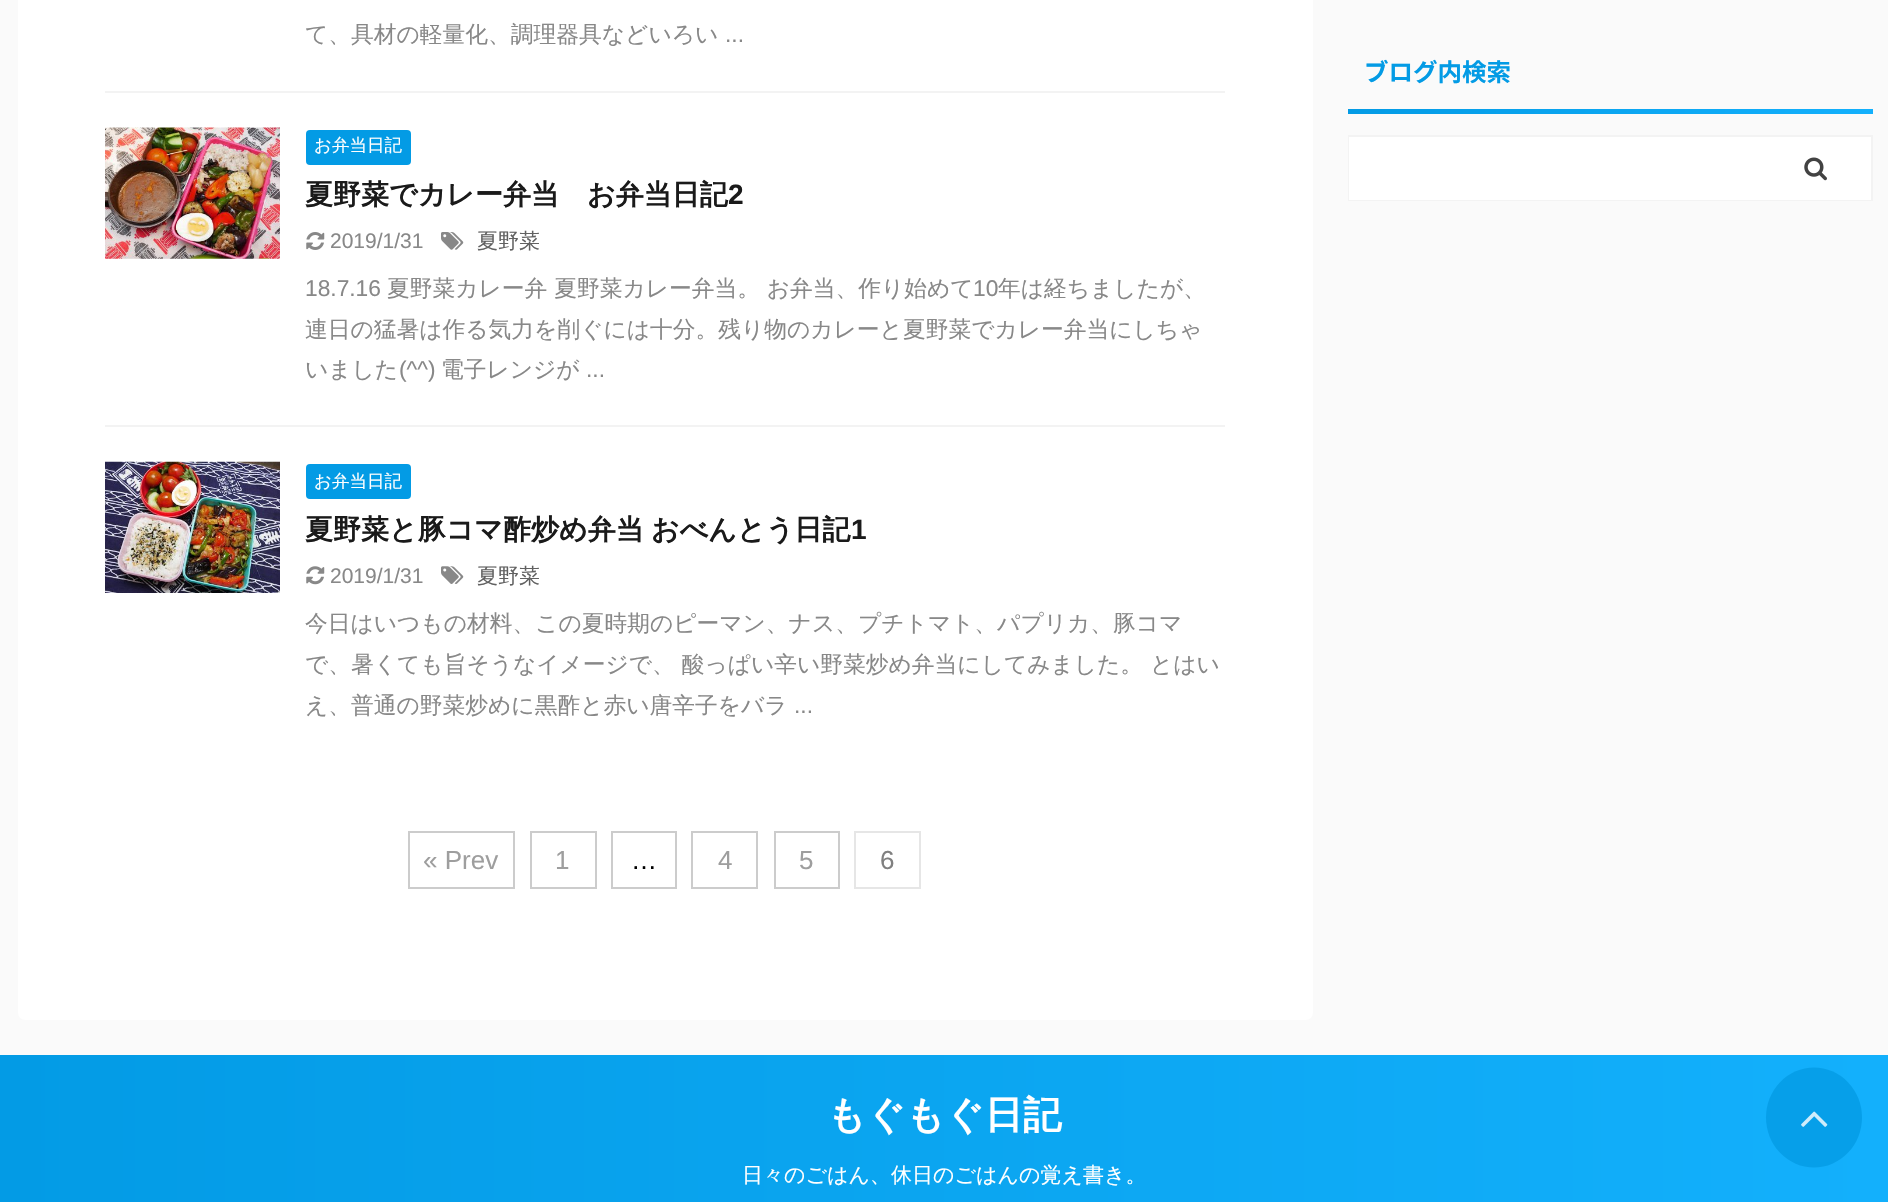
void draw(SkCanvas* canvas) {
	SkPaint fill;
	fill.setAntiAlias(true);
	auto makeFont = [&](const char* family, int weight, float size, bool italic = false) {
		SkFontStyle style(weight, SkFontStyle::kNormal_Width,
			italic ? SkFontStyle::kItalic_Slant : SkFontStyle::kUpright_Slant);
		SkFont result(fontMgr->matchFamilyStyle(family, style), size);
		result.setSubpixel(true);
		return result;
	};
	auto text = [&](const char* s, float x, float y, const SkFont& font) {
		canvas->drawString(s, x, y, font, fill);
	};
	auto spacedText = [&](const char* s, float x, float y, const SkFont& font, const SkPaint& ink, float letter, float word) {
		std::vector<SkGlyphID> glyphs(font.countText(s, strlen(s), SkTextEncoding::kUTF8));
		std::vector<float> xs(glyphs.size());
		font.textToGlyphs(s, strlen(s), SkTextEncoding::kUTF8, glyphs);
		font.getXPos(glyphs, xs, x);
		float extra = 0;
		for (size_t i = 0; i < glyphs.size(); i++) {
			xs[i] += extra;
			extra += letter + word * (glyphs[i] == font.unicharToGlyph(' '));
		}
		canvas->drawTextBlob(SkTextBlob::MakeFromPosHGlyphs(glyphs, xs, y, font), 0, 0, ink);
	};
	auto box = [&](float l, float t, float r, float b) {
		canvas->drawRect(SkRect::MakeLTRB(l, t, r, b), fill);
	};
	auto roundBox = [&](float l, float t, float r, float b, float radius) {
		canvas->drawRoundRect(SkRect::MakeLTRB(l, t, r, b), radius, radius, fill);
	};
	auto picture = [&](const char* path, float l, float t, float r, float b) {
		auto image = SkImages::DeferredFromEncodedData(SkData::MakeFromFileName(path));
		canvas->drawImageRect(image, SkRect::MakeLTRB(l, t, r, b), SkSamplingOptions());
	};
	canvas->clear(0xFFFAFAFA);
	fill.setColor(0xFFFFFFFF);
	roundBox(18, -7, 1313, 1020, 7);
	fill.setColor(0xFFF3F3F3);
	box(105, 91, 1225, 93);
	box(105, 425, 1225, 427);
	picture("image0.png", 105, 127, 280, 259);
	fill.setColor(0xFF039BE5);
	roundBox(306, 130, 411, 165, 4);
	picture("image1.png", 306, 232, 325, 250);
	picture("image2.png", 441, 232, 464, 250);
	picture("image3.png", 105, 461, 280, 593);
	roundBox(306, 464, 411, 499, 4);
	picture("image4.png", 306, 566, 325, 585);
	picture("image5.png", 441, 566, 464, 584);
	fill.setStyle(SkPaint::kStroke_Style);
	fill.setStrokeWidth(2);
	fill.setColor(0xFFCCCCCC);
	canvas->drawRect(SkRect::MakeLTRB(409, 832, 514, 888), fill);
	canvas->drawRect(SkRect::MakeLTRB(531, 832, 596, 888), fill);
	canvas->drawRect(SkRect::MakeLTRB(612, 832, 676, 888), fill);
	canvas->drawRect(SkRect::MakeLTRB(692, 832, 757, 888), fill);
	canvas->drawRect(SkRect::MakeLTRB(775, 832, 839, 888), fill);
	fill.setColor(0xFFE6E6E6);
	canvas->drawRect(SkRect::MakeLTRB(855, 832, 920, 888), fill);
	fill.setStyle(SkPaint::kFill_Style);
	{
		const SkColor colors[] = {0xFF13B0FC, 0xFF039BE5};
		const float stops[] = {0, 1};
		const SkPoint ends[] = {{1873, 111}, {1348, 111}};
		fill.setShader(SkGradientShader::MakeLinear(ends, colors, stops, 2, SkTileMode::kClamp));
		fill.setAlpha(255);
	}
	box(1348, 109, 1873, 114);
	fill.setStyle(SkPaint::kStroke_Style);
	fill.setShader(nullptr);
	fill.setColor(0xFFF3F3F3);
	canvas->drawRect(SkRect::MakeLTRB(1349, 136, 1872, 200), fill);
	fill.setStyle(SkPaint::kFill_Style);
	fill.setColor(0xFFFFFFFF);
	box(1349, 137, 1871, 200);
	picture("image6.png", 1804, 157, 1827, 181);
	{
		const SkColor colors[] = {0xFF13B0FC, 0xFF039BE5};
		const float stops[] = {0, 1};
		const SkPoint ends[] = {{1888, 1162}, {0, 1162}};
		fill.setShader(SkGradientShader::MakeLinear(ends, colors, stops, 2, SkTileMode::kClamp));
		fill.setAlpha(255);
	}
	box(0, 1055, 1888, 1202);
	fill.setShader(nullptr);
	fill.setColor(0xFF069FE9);
	canvas->drawOval(SkRect::MakeLTRB(1766, 1067.5f, 1862, 1167.5f), fill);
	picture("image7.png", 1801, 1111, 1828, 1127);
	auto font1 = makeFont("WenQuanYi Zen Hei", 500, 22.75f);
	fill.setColor(0xFF888888);
	text("て、具材の軽量化、調理器具などいろい", 305, 42, font1);
	auto font2 = makeFont("Liberation Sans", 400, 22.75f);
	text("...", 725, 42, font2);
	auto font3 = makeFont("WenQuanYi Zen Hei", 500, 17.5f);
	fill.setColor(0xFFFFFFFF);
	text("お弁当日記", 314, 151, font3);
	auto font4 = makeFont("WenQuanYi Zen Hei", 700, 28);
	fill.setColor(0xFF1A1A1A);
	text("夏野菜でカレー弁当　お弁当日記", 305, 204, font4);
	auto font5 = makeFont("Liberation Sans", 700, 28);
	text("2", 728, 204, font5);
	auto font6 = makeFont("Liberation Sans", 400, 21);
	fill.setColor(0xFF888888);
	text("2019/1/31", 330, 248, font6);
	auto font7 = makeFont("WenQuanYi Zen Hei", 500, 21);
	fill.setColor(0xFF616161);
	text("夏野菜", 477, 248, font7);
	fill.setColor(0xFF888888);
	text("18.7.16", 305, 296, font2);
	text("夏野菜カレー弁 夏野菜カレー弁当。 お弁当、作り始めて", 387, 296, font1);
	text("10", 973, 296, font2);
	text("年は経ちましたが、", 998, 296, font1);
	text("連日の猛暑は作る気力を削ぐには十分。残り物のカレーと夏野菜でカレー弁当にしちゃ", 305, 337, font1);
	text("いました", 305, 377, font1);
	text("(^^)", 399, 377, font2);
	text("電子レンジが", 441, 377, font1);
	text("...", 586, 377, font2);
	fill.setColor(0xFFFFFFFF);
	text("お弁当日記", 314, 487, font3);
	fill.setColor(0xFF1A1A1A);
	spacedText("夏野菜と豚コマ酢炒め弁当 おべんとう日記", 305, 539, font4, fill, 0, -1);
	text("1", 851, 539, font5);
	fill.setColor(0xFF888888);
	text("2019/1/31", 330, 583, font6);
	fill.setColor(0xFF616161);
	text("夏野菜", 477, 583, font7);
	fill.setColor(0xFF888888);
	text("今日はいつもの材料、この夏時期のピーマン、ナス、プチトマト、パプリカ、豚コマ", 305, 631, font1);
	text("で、暑くても旨そうなイメージで、 酸っぱい辛い野菜炒め弁当にしてみました。 とはい", 305, 672, font1);
	text("え、普通の野菜炒めに黒酢と赤い唐辛子をバラ", 305, 713, font1);
	text("...", 794, 713, font2);
	auto font8 = makeFont("Liberation Sans", 400, 26);
	fill.setColor(0xFF9E9E9E);
	text("« Prev", 423, 869, font8);
	text("1", 555, 869, font8);
	fill.setColor(0xFF000000);
	text("…", 631, 869, font8);
	fill.setColor(0xFF9E9E9E);
	text("4", 718, 869, font8);
	text("5", 799, 869, font8);
	fill.setColor(0xFF808080);
	text("6", 880, 869, font8);
	auto font9 = makeFont("Noto Sans JP", 700, 24.5f);
	fill.setColor(0xFF039BE5);
	text("ブログ内検索", 1364, 81, font9);
	auto font10 = makeFont("WenQuanYi Zen Hei", 700, 38.5f);
	fill.setColor(0xFFFFFFFF);
	text("もぐもぐ日記", 827, 1128, font10);
	text("日々のごはん、休日のごはんの覚え書き。", 742, 1182, font7);
}
